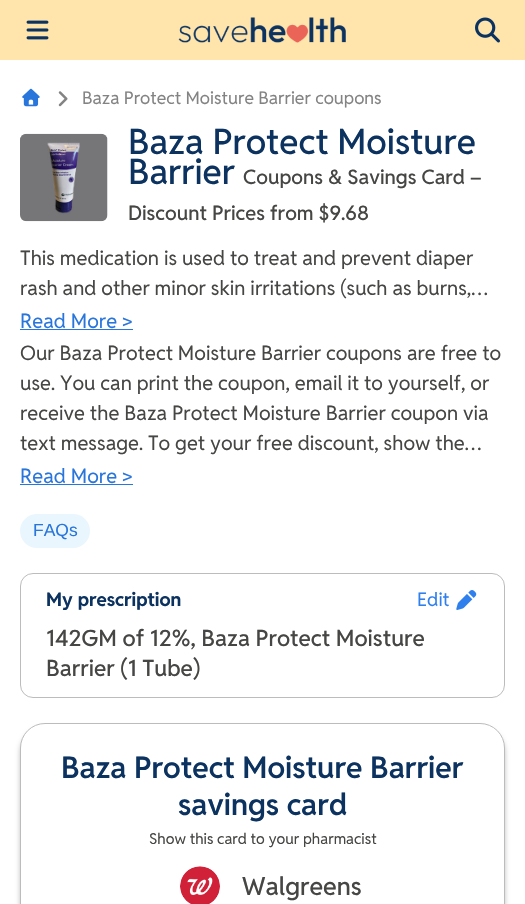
void draw(SkCanvas* canvas) {
	SkPaint fill;
	fill.setAntiAlias(true);
	auto makeFont = [&](const char* family, int weight, float size, bool italic = false) {
		SkFontStyle style(weight, SkFontStyle::kNormal_Width,
			italic ? SkFontStyle::kItalic_Slant : SkFontStyle::kUpright_Slant);
		SkFont result(fontMgr->matchFamilyStyle(family, style), size);
		result.setSubpixel(true);
		return result;
	};
	auto text = [&](const char* s, float x, float y, const SkFont& font) {
		canvas->drawString(s, x, y, font, fill);
	};
	auto box = [&](float l, float t, float r, float b) {
		canvas->drawRect(SkRect::MakeLTRB(l, t, r, b), fill);
	};
	auto roundBox = [&](float l, float t, float r, float b, float radius) {
		canvas->drawRoundRect(SkRect::MakeLTRB(l, t, r, b), radius, radius, fill);
	};
	auto picture = [&](const char* path, float l, float t, float r, float b) {
		auto image = SkImages::DeferredFromEncodedData(SkData::MakeFromFileName(path));
		canvas->drawImageRect(image, SkRect::MakeLTRB(l, t, r, b), SkSamplingOptions());
	};
	canvas->clear(0xFFFFFFFF);
	fill.setColor(0xFFFFE5AB);
	box(0, 0, 525, 60);
	picture("image0.png", 26, 20, 49, 40);
	picture("image1.png", 178, 17, 346, 43);
	picture("image2.png", 475, 17, 500, 43);
	picture("image3.png", 22, 88, 40, 107);
	picture("image4.png", 58, 91, 68, 107);
	picture("image5.png", 20, 133, 108, 222);
	fill.setColor(0xFF2875DC);
	box(20, 329, 133, 330);
	box(20, 484, 133, 485);
	fill.setColor(0xFFEAF6FD);
	roundBox(20, 514, 90, 548, 17);
	fill.setStyle(SkPaint::kStroke_Style);
	fill.setStrokeWidth(1);
	fill.setColor(0xFFBCBCBC);
	canvas->drawRoundRect(SkRect::MakeLTRB(20.5f, 573.5f, 504.5f, 697.5f), 12.5f, 12.5f, fill);
	picture("image6.png", 456, 590, 477, 610);
	fill.setStyle(SkPaint::kFill_Style);
	fill.setColor(0x40000000);
	fill.setMaskFilter(SkMaskFilter::MakeBlur(kNormal_SkBlurStyle, 2.5f));
	canvas->drawRoundRect(SkRect::MakeLTRB(20, 728, 505, 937), 25, 25, fill);
	fill.setMaskFilter(nullptr);
	fill.setColor(0xFFFFFFFF);
	canvas->drawRoundRect(SkRect::MakeLTRB(20.5f, 723.5f, 504.5f, 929.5f), 24.5f, 24.5f, fill);
	fill.setStyle(SkPaint::kStroke_Style);
	fill.setColor(0xFFBCBCBC);
	canvas->drawRoundRect(SkRect::MakeLTRB(20.5f, 723.5f, 504.5f, 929.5f), 24.5f, 24.5f, fill);
	picture("image7.png", 180, 866, 220, 904);
	auto font1 = makeFont("Reddit Sans", 400, 17.5f);
	fill.setStyle(SkPaint::kFill_Style);
	fill.setColor(0xFF838383);
	text("Baza Protect Moisture Barrier coupons", 82, 104, font1);
	auto font2 = makeFont("Reddit Sans", 500, 35);
	fill.setColor(0xFF0C3260);
	text("Baza Protect Moisture", 128, 154, font2);
	text("Barrier", 128, 184, font2);
	auto font3 = makeFont("Reddit Sans", 500, 20);
	fill.setColor(0xFF464644);
	text("Coupons & Savings Card –", 243, 184, font3);
	text("Discount Prices from $9.68", 128, 220, font3);
	auto font4 = makeFont("Reddit Sans", 400, 20);
	text("This medication is used to treat and prevent diaper", 20, 265, font4);
	text("rash and other minor skin irritations (such as burns,…", 20, 295, font4);
	fill.setColor(0xFF2875DC);
	text("Read More >", 20, 328, font4);
	fill.setColor(0xFF464644);
	text("Our Baza Protect Moisture Barrier coupons are free to", 20, 360, font4);
	text("use. You can print the coupon, email it to yourself, or", 20, 390, font4);
	text("receive the Baza Protect Moisture Barrier coupon via", 20, 420, font4);
	text("text message. To get your free discount, show the…", 20, 450, font4);
	fill.setColor(0xFF2875DC);
	text("Read More >", 20, 483, font4);
	auto font5 = makeFont("Liberation Sans", 400, 17.5f);
	text("FAQs", 33, 536, font5);
	auto font6 = makeFont("Reddit Sans", 700, 18.75f);
	fill.setColor(0xFF0C3260);
	text("My prescription", 46, 606, font6);
	auto font7 = makeFont("Reddit Sans", 400, 18.75f);
	fill.setColor(0xFF2F80ED);
	text("Edit", 417, 606, font7);
	auto font8 = makeFont("Reddit Sans", 500, 22.5f);
	fill.setColor(0xFF464644);
	text("142GM of 12%, Baza Protect Moisture", 46, 646, font8);
	text("Barrier (1 Tube)", 46, 676, font8);
	auto font9 = makeFont("Reddit Sans", 600, 30);
	fill.setColor(0xFF0C3260);
	text("Baza Protect Moisture Barrier", 61, 778, font9);
	text("savings card", 178, 815, font9);
	auto font10 = makeFont("Reddit Sans", 400, 15);
	fill.setColor(0xFF464644);
	text("Show this card to your pharmacist", 149, 844, font10);
	auto font11 = makeFont("Reddit Sans", 500, 25);
	text("Walgreens", 242, 895, font11);
}
